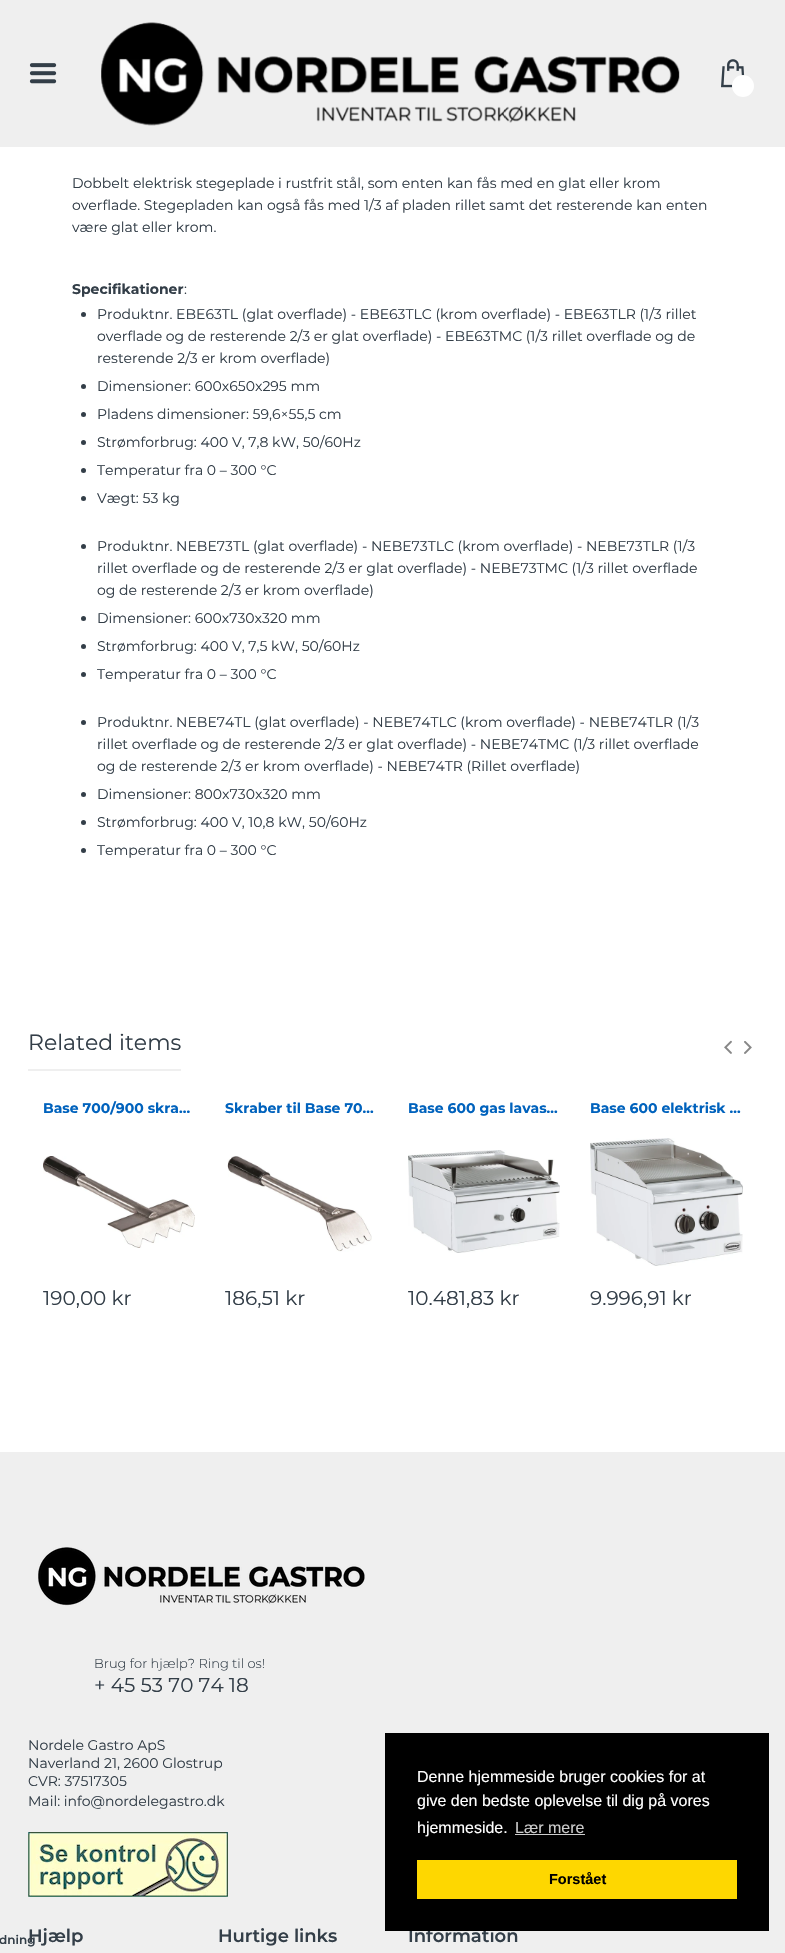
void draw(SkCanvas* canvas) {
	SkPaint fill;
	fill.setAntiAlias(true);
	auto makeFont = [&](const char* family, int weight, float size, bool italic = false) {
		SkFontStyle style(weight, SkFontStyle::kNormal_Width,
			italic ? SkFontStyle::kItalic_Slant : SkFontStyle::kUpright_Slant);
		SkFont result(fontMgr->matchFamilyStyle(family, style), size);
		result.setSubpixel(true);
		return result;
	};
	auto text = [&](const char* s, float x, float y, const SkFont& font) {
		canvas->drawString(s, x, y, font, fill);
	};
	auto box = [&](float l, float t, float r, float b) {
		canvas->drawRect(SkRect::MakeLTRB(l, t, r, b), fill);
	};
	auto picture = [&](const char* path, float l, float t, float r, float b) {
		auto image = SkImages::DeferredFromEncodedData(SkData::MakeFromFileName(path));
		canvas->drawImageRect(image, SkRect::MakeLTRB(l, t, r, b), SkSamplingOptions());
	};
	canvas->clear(0xFFFFFFFF);
	fill.setColor(0xFF333E48);
	canvas->drawCircle(83.5f, 314.5f, 2.5f, fill);
	canvas->drawCircle(83.5f, 386.5f, 2.5f, fill);
	canvas->drawCircle(83.5f, 414.5f, 2.5f, fill);
	canvas->drawCircle(83.5f, 442.5f, 2.5f, fill);
	canvas->drawCircle(83.5f, 470.5f, 2.5f, fill);
	canvas->drawCircle(83.5f, 498.5f, 2.5f, fill);
	canvas->drawCircle(83.5f, 546.5f, 2.5f, fill);
	canvas->drawCircle(83.5f, 618.5f, 2.5f, fill);
	canvas->drawCircle(83.5f, 646.5f, 2.5f, fill);
	canvas->drawCircle(83.5f, 674.5f, 2.5f, fill);
	canvas->drawCircle(83.5f, 722.5f, 2.5f, fill);
	canvas->drawCircle(83.5f, 794.5f, 2.5f, fill);
	canvas->drawCircle(83.5f, 822.5f, 2.5f, fill);
	canvas->drawCircle(83.5f, 850.5f, 2.5f, fill);
	fill.setColor(0xFFEFEFEF);
	box(28, 1069, 181, 1071);
	picture("image0.png", 724, 1040, 732, 1054);
	picture("image1.png", 744, 1041, 752, 1054);
	picture("image2.png", 43, 1156, 195, 1248);
	picture("image3.png", 227, 1156, 372, 1252);
	picture("image4.png", 408, 1150, 560, 1253);
	picture("image5.png", 590, 1138, 743, 1266);
	box(0, 0, 785, 147);
	picture("image6.png", 29, 63, 57, 84);
	picture("image7.png", 101, 22, 680, 126);
	picture("image8.png", 721, 59, 745, 88);
	fill.setColor(0xFFFFFFFF);
	canvas->drawCircle(743, 86, 11, fill);
	fill.setColor(0xFFEFEFEF);
	box(0, 1452, 785, 1953);
	picture("image9.png", 38, 1547, 365, 1606);
	picture("image10.png", 28, 1832, 228, 1897);
	auto font1 = makeFont("Montserrat", 400, 14);
	fill.setColor(0xFF333E48);
	text("Dobbelt elektrisk stegeplade i rustfrit stål, som enten kan fås med en glat eller krom", 72, 188, font1);
	text("overflade. Stegepladen kan også fås med 1/3 af pladen rillet samt det resterende kan enten", 72, 210, font1);
	text("være glat eller krom.", 72, 232, font1);
	auto font2 = makeFont("Montserrat", 700, 14);
	text("Specifikationer", 72, 294, font2);
	text(":", 184, 294, font1);
	text("Produktnr. EBE63TL (glat overflade) - EBE63TLC (krom overflade) - EBE63TLR (1/3 rillet", 97, 319, font1);
	text("overflade og de resterende 2/3 er glat overflade) - EBE63TMC (1/3 rillet overflade og de", 97, 341, font1);
	text("resterende 2/3 er krom overflade)", 97, 363, font1);
	text("Dimensioner: 600x650x295 mm", 97, 391, font1);
	text("Pladens dimensioner: 59,6×55,5 cm", 97, 419, font1);
	text("Strømforbrug: 400 V, 7,8 kW, 50/60Hz", 97, 447, font1);
	text("Temperatur fra 0 – 300 °C", 97, 475, font1);
	text("Vægt: 53 kg", 97, 503, font1);
	text("Produktnr. NEBE73TL (glat overflade) - NEBE73TLC (krom overflade) - NEBE73TLR (1/3", 97, 551, font1);
	text("rillet overflade og de resterende 2/3 er glat overflade) - NEBE73TMC (1/3 rillet overflade", 97, 573, font1);
	text("og de resterende 2/3 er krom overflade)", 97, 595, font1);
	text("Dimensioner: 600x730x320 mm", 97, 623, font1);
	text("Strømforbrug: 400 V, 7,5 kW, 50/60Hz", 97, 651, font1);
	text("Temperatur fra 0 – 300 °C", 97, 679, font1);
	text("Produktnr. NEBE74TL (glat overflade) - NEBE74TLC (krom overflade) - NEBE74TLR (1/3", 97, 727, font1);
	text("rillet overflade og de resterende 2/3 er glat overflade) - NEBE74TMC (1/3 rillet overflade", 97, 749, font1);
	text("og de resterende 2/3 er krom overflade) - NEBE74TR (Rillet overflade)", 97, 771, font1);
	text("Dimensioner: 800x730x320 mm", 97, 799, font1);
	text("Strømforbrug: 400 V, 10,8 kW, 50/60Hz", 97, 827, font1);
	text("Temperatur fra 0 – 300 °C", 97, 855, font1);
	auto font3 = makeFont("Montserrat", 400, 22);
	text("Related items", 28, 1050, font3);
	fill.setColor(0xFF0062BD);
	text("Base 700/900 skra…", 43, 1113, font2);
	auto font4 = makeFont("Montserrat", 400, 20);
	fill.setColor(0xFF333E48);
	text("190,00 kr", 43, 1305, font4);
	fill.setColor(0xFF0062BD);
	text("Skraber til Base 70…", 225, 1113, font2);
	fill.setColor(0xFF333E48);
	text("186,51 kr", 225, 1305, font4);
	fill.setColor(0xFF0062BD);
	text("Base 600 gas lavas…", 408, 1113, font2);
	fill.setColor(0xFF333E48);
	text("10.481,83 kr", 408, 1305, font4);
	fill.setColor(0xFF0062BD);
	text("Base 600 elektrisk …", 590, 1113, font2);
	fill.setColor(0xFF333E48);
	text("9.996,91 kr", 590, 1305, font4);
	auto font5 = makeFont("Montserrat", 300, 13);
	text("Brug for hjælp? Ring til os!", 94, 1668, font5);
	text("+ 45 53 70 74 18", 94, 1692, font4);
	text("Nordele Gastro ApS", 28, 1750, font1);
	text("Naverland 21, 2600 Glostrup", 28, 1768, font1);
	text("CVR: 37517305", 28, 1786, font1);
	text("Mail: info@nordelegastro.dk", 28, 1806, font1);
	auto font6 = makeFont("Montserrat", 600, 18);
	text("Hjælp", 28, 1942, font6);
	auto font7 = makeFont("Montserrat", 600, 12);
	text("dning", -1, 1944, font7);
	text("Hurtige links", 218, 1942, font6);
	text("Information", 408, 1942, font6);
	fill.setColor(0xFF000000);
	box(385, 1733, 769, 1931);
	auto font8 = makeFont("Liberation Sans", 400, 16);
	fill.setColor(0xFFFFFFFF);
	text("Denne hjemmeside bruger cookies for at", 417, 1782, font8);
	text("give den bedste oplevelse til dig på vores", 417, 1806, font8);
	text("hjemmeside.", 417, 1833, font8);
	fill.setColor(0xFFCCCCCC);
	text("Lær mere", 515, 1833, font8);
	box(515, 1834, 585, 1835);
	fill.setColor(0xFFFED700);
	box(417, 1860, 737, 1899);
	auto font9 = makeFont("Liberation Sans", 700, 14.5f);
	fill.setColor(0xFF000000);
	text("Forstået", 549, 1884, font9);
}
